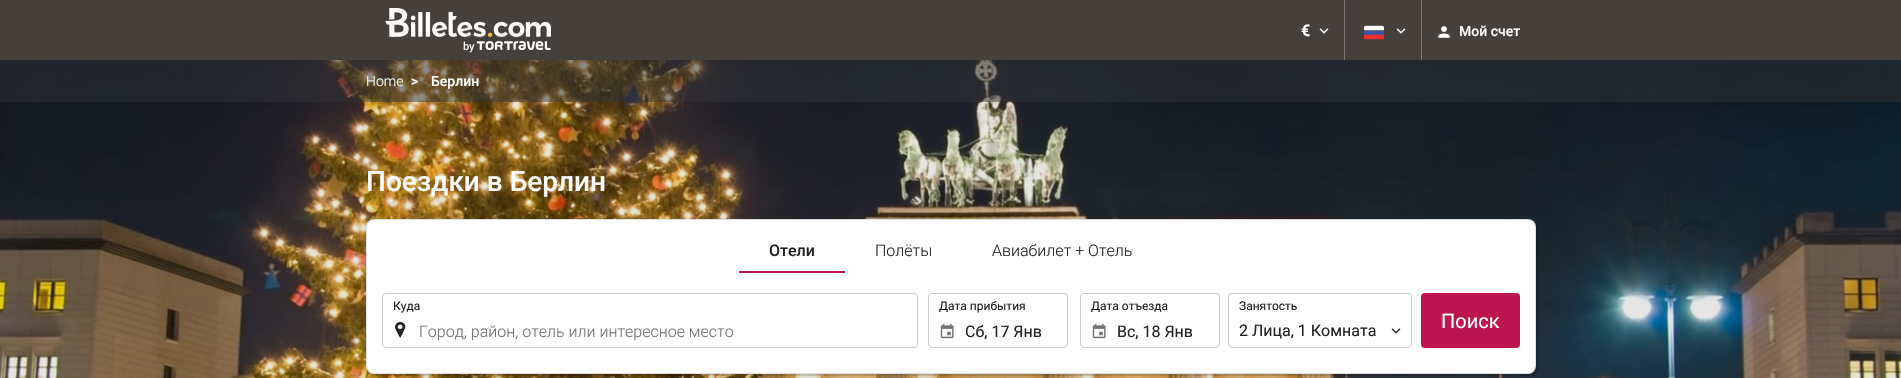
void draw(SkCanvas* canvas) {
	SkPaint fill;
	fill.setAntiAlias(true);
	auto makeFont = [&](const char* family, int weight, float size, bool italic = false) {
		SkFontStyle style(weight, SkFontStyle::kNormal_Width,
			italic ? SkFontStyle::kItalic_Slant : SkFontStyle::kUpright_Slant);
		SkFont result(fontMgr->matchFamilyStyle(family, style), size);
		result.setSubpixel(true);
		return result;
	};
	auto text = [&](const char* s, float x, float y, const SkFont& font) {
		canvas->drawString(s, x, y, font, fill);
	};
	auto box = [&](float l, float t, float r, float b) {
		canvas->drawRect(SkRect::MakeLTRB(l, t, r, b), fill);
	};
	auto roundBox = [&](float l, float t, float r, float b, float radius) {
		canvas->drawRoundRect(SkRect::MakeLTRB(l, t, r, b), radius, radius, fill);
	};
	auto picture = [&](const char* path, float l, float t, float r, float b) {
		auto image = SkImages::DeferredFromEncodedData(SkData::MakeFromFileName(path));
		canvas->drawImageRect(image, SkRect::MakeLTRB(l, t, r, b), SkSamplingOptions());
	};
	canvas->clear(0xFF46403C);
	picture("image0.png", 385, 8, 551, 53);
	fill.setColor(0xFF7E7977);
	box(1344, 0, 1345, 60);
	picture("image1.png", 1319, 28, 1329, 34);
	box(1421, 0, 1422, 60);
	picture("image2.png", 1364, 25, 1384, 40);
	picture("image1.png", 1396, 28, 1406, 34);
	picture("image3.png", 1438, 26, 1450, 38);
	picture("image4.png", 0, 60, 1901, 378);
	fill.setColor(0x80303235);
	box(0, 60, 1901, 102);
	fill.setColor(0x33000000);
	fill.setMaskFilter(SkMaskFilter::MakeBlur(kNormal_SkBlurStyle, 1));
	canvas->drawRoundRect(SkRect::MakeLTRB(368, 221, 1538, 376), 8, 8, fill);
	fill.setMaskFilter(nullptr);
	fill.setColor(0xFFDFDFDF);
	roundBox(366, 219, 1536, 374, 8);
	fill.setColor(0xFFFFFFFF);
	canvas->drawPath(SkPathBuilder().moveTo(375, 220).lineTo(1527, 220).cubicTo(1531.5f, 220, 1535, 223.5f, 1535, 228).lineTo(1535, 293).lineTo(367, 293).lineTo(367, 228).cubicTo(367, 223.5f, 370.5f, 220, 375, 220).close().detach(), fill);
	fill.setColor(0xFFBD1550);
	box(739, 271, 845, 273);
	fill.setColor(0xFFFFFFFF);
	canvas->drawPath(SkPathBuilder().moveTo(367, 293).lineTo(1535, 293).lineTo(1535, 365).cubicTo(1535, 369.5f, 1531.5f, 373, 1527, 373).lineTo(375, 373).cubicTo(370.5f, 373, 367, 369.5f, 367, 365).close().detach(), fill);
	picture("image5.png", 395, 322, 406, 338);
	fill.setStyle(SkPaint::kStroke_Style);
	fill.setStrokeWidth(1);
	fill.setColor(0xFFD0CBC9);
	canvas->drawRoundRect(SkRect::MakeLTRB(382.5f, 293.5f, 917.5f, 347.5f), 3.5f, 3.5f, fill);
	picture("image6.png", 940, 323, 954, 339);
	canvas->drawRoundRect(SkRect::MakeLTRB(928.5f, 293.5f, 1067.5f, 347.5f), 3.5f, 3.5f, fill);
	picture("image6.png", 1092, 323, 1106, 339);
	canvas->drawRoundRect(SkRect::MakeLTRB(1080.5f, 293.5f, 1219.5f, 347.5f), 3.5f, 3.5f, fill);
	canvas->drawRoundRect(SkRect::MakeLTRB(1228.5f, 293.5f, 1411.5f, 347.5f), 3.5f, 3.5f, fill);
	picture("image7.png", 1391, 328, 1401, 334);
	fill.setStyle(SkPaint::kFill_Style);
	fill.setColor(0xFFBD1550);
	roundBox(1421, 293, 1520, 348, 4);
	auto font1 = makeFont("Roboto", 700, 16);
	fill.setColor(0xFFFFFFFF);
	text("€", 1301, 36, font1);
	auto font2 = makeFont("Roboto", 500, 14);
	text("Мой счет", 1459, 36, font2);
	auto font3 = makeFont("Roboto", 300, 14);
	text("Home", 366, 86, font3);
	text(">", 411, 86, font2);
	text("Берлин", 431, 86, font2);
	auto font4 = makeFont("Roboto", 500, 28);
	text("Поездки в Берлин", 366, 191, font4);
	auto font5 = makeFont("Roboto", 500, 16);
	fill.setColor(0xFF222222);
	text("Отели", 769, 256, font5);
	auto font6 = makeFont("Roboto", 300, 16);
	text("Полёты", 875, 256, font6);
	text("Авиабилет + Отель", 992, 256, font6);
	auto font7 = makeFont("Roboto", 400, 12);
	text("Куда", 393, 310, font7);
	fill.setColor(0xFF74716E);
	text("Город, район, отель или интересное место", 419, 337, font6);
	fill.setColor(0xFF222222);
	text("Дата прибытия", 939, 310, font7);
	auto font8 = makeFont("Roboto", 400, 16);
	text("Сб, 17 Янв", 965, 337, font8);
	text("Дата отъезда", 1091, 310, font7);
	text("Вс, 18 Янв", 1117, 337, font8);
	text("Занятость", 1239, 310, font7);
	text("2 Лица, 1 Комната", 1239, 336, font8);
	auto font9 = makeFont("Roboto", 400, 20);
	fill.setColor(0xFFFFFFFF);
	text("Поиск", 1441, 328, font9);
}
